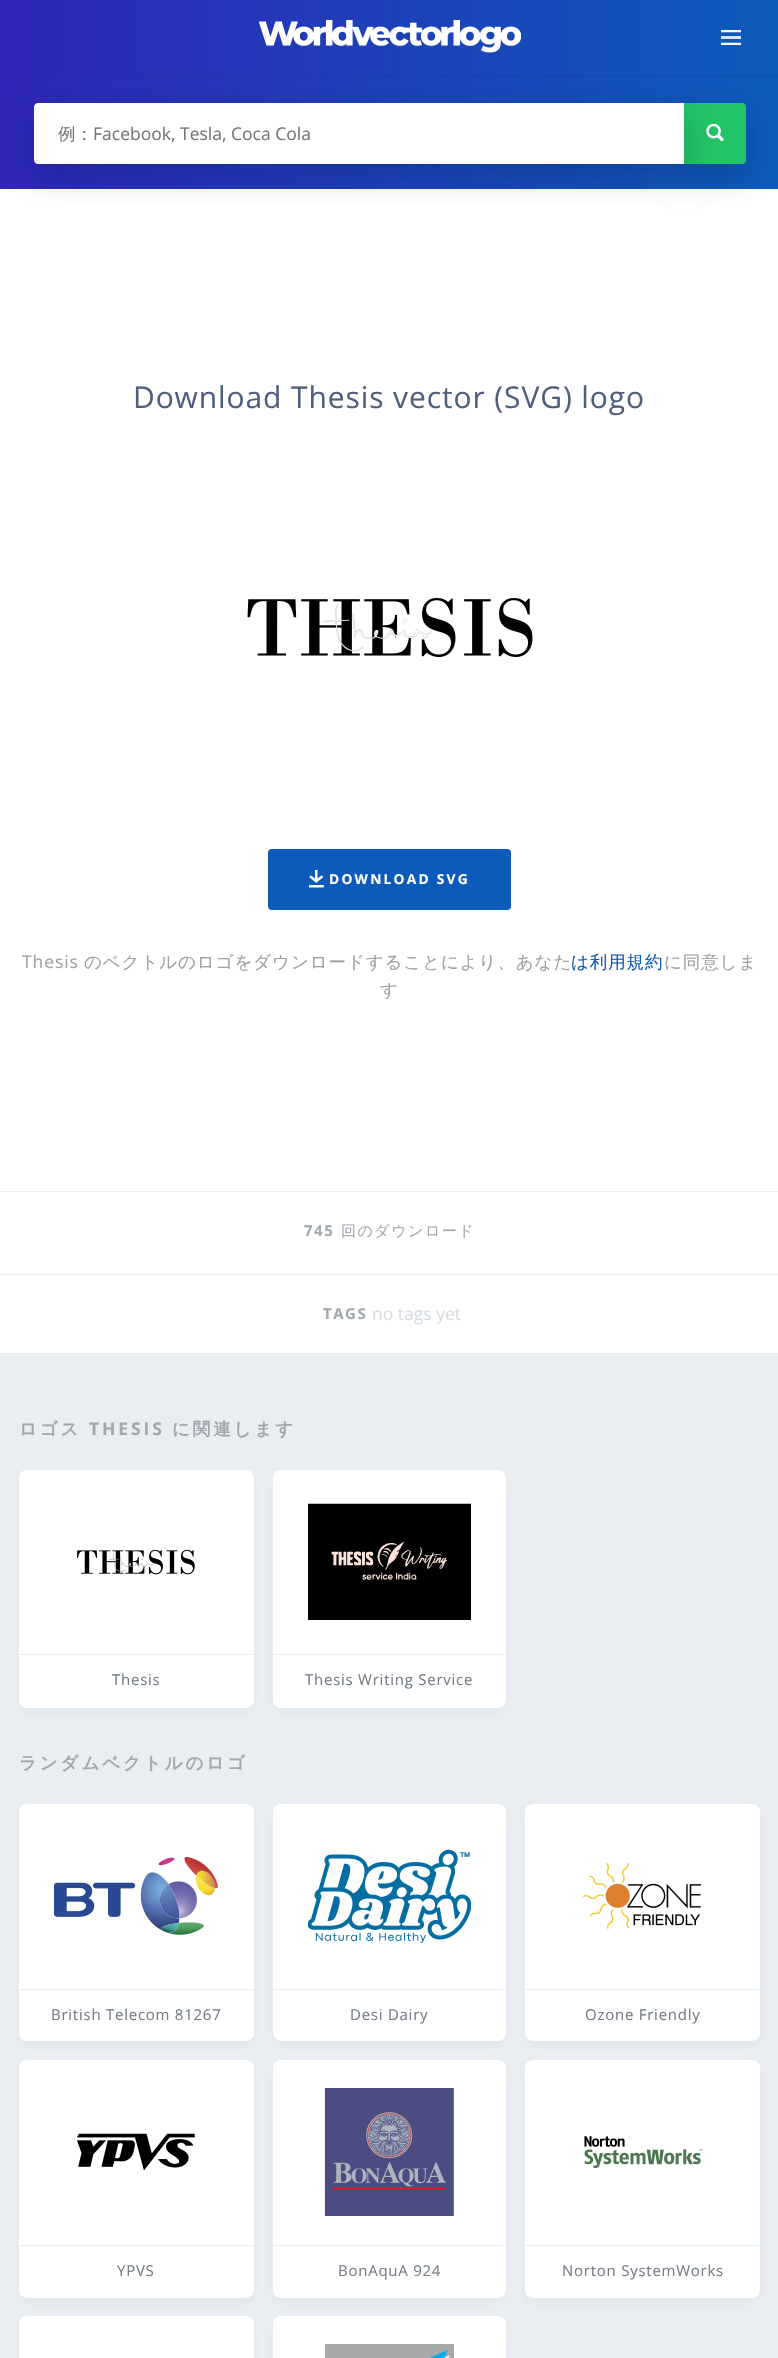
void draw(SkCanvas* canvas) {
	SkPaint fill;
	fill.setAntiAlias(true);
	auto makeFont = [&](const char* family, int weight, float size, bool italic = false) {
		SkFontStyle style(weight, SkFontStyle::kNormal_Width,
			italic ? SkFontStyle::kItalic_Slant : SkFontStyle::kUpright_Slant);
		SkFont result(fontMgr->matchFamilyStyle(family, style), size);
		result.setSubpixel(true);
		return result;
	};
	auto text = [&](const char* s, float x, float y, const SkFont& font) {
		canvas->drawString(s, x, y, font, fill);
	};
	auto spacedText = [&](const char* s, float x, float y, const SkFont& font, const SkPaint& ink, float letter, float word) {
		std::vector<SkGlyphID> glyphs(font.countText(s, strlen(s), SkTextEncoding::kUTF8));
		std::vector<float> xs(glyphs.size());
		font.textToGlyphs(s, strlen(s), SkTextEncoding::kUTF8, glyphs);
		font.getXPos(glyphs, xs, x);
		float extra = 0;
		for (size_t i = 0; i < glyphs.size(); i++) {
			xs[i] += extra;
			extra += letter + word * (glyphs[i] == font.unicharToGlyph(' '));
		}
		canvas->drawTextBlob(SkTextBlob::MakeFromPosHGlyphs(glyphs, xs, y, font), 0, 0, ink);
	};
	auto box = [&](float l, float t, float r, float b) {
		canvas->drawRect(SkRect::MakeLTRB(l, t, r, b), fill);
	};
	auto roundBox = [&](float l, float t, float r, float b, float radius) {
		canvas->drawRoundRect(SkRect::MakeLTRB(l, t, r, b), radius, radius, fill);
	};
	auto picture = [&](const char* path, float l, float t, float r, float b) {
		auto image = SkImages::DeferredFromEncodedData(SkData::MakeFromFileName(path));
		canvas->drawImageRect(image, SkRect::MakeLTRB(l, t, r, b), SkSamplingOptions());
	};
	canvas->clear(0xFFFFFFFF);
	{
		const SkColor colors[] = {0xFF2F25B8, 0xFF0C5BBA};
		const float stops[] = {0, 1};
		const SkPoint ends[] = {{0, 38}, {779, 38}};
		fill.setShader(SkGradientShader::MakeLinear(ends, colors, stops, 2, SkTileMode::kClamp));
		fill.setAlpha(255);
	}
	box(0, 0, 778, 78);
	{
		const SkColor colors[] = {0xFF2824AA, 0xFF0C4FAB};
		const float stops[] = {0, 1};
		const SkPoint ends[] = {{0, 38}, {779, 38}};
		fill.setShader(SkGradientShader::MakeLinear(ends, colors, stops, 2, SkTileMode::kClamp));
		fill.setAlpha(255);
	}
	box(0, 76, 778, 77);
	picture("image0.png", 259, 20, 521, 53);
	canvas->save();
	canvas->clipRect(SkRect::MakeLTRB(721, 30, 741, 45));
	fill.setStyle(SkPaint::kStroke_Style);
	fill.setStrokeWidth(2.5f);
	fill.setShader(nullptr);
	fill.setColor(0xFFFFFFFF);
	canvas->drawPath(SkPathBuilder().moveTo(721, 31).lineTo(741, 31).detach(), fill);
	canvas->restore();
	fill.setStyle(SkPaint::kFill_Style);
	fill.setColor(0xFFD7E3F4);
	box(721, 36, 741, 39);
	canvas->save();
	canvas->clipRect(SkRect::MakeLTRB(721, 30, 741, 45));
	fill.setStyle(SkPaint::kStroke_Style);
	fill.setColor(0xFFFFFFFF);
	canvas->drawPath(SkPathBuilder().moveTo(721, 44).lineTo(741, 44).detach(), fill);
	canvas->restore();
	fill.setStyle(SkPaint::kFill_Style);
	fill.setColor(0xFFEBEEF1);
	box(0, 1353, 778, 2358);
	{
		const SkColor colors[] = {0xFF2F25B8, 0xFF0C5BBA};
		const float stops[] = {0, 1};
		const SkPoint ends[] = {{0, 133}, {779, 133}};
		fill.setShader(SkGradientShader::MakeLinear(ends, colors, stops, 2, SkTileMode::kClamp));
		fill.setAlpha(255);
	}
	box(0, 78, 778, 189);
	fill.setShader(nullptr);
	fill.setColor(0x40001741);
	fill.setMaskFilter(SkMaskFilter::MakeBlur(kNormal_SkBlurStyle, 17));
	canvas->drawRoundRect(SkRect::MakeLTRB(684, 115, 746, 176), 4, 4, fill);
	fill.setMaskFilter(nullptr);
	fill.setColor(0xFF21C466);
	canvas->drawPath(SkPathBuilder().moveTo(684, 103).lineTo(742, 103).cubicTo(744, 103, 746, 105, 746, 107).lineTo(746, 160).cubicTo(746, 162, 744, 164, 742, 164).lineTo(684, 164).close().detach(), fill);
	picture("image1.png", 706, 124, 724, 141);
	fill.setColor(0x40001741);
	fill.setMaskFilter(SkMaskFilter::MakeBlur(kNormal_SkBlurStyle, 17));
	canvas->drawRoundRect(SkRect::MakeLTRB(34, 115, 684, 176), 4, 4, fill);
	fill.setMaskFilter(nullptr);
	fill.setColor(0xFFFFFFFF);
	canvas->drawPath(SkPathBuilder().moveTo(38, 103).lineTo(684, 103).lineTo(684, 164).lineTo(38, 164).cubicTo(36, 164, 34, 162, 34, 160).lineTo(34, 107).cubicTo(34, 105, 36, 103, 38, 103).close().detach(), fill);
	picture("image2.png", 247, 598, 533, 657);
	fill.setColor(0xFF0C5BBA);
	roundBox(268, 849, 511, 910, 4);
	picture("image3.png", 309, 870, 324, 888);
	fill.setColor(0xFFEBEEF1);
	box(0, 1191, 778, 1192);
	box(0, 1274, 778, 1275);
	fill.setColor(0x40BDD0DF);
	fill.setMaskFilter(SkMaskFilter::MakeBlur(kNormal_SkBlurStyle, 6));
	canvas->drawRoundRect(SkRect::MakeLTRB(19, 1475, 254, 1713), 8, 8, fill);
	fill.setMaskFilter(nullptr);
	fill.setColor(0xFFFFFFFF);
	roundBox(19, 1470, 254, 1708, 8);
	picture("image4.png", 76, 1549, 195, 1575);
	fill.setColor(0xFFEBEEF1);
	box(19, 1654, 254, 1655);
	fill.setColor(0x40BDD0DF);
	fill.setMaskFilter(SkMaskFilter::MakeBlur(kNormal_SkBlurStyle, 6));
	canvas->drawRoundRect(SkRect::MakeLTRB(273, 1475, 506, 1713), 8, 8, fill);
	fill.setMaskFilter(nullptr);
	fill.setColor(0xFFFFFFFF);
	roundBox(273, 1470, 506, 1708, 8);
	picture("image5.png", 308, 1503, 471, 1620);
	fill.setColor(0xFFEBEEF1);
	box(273, 1654, 506, 1655);
	fill.setColor(0x40BDD0DF);
	fill.setMaskFilter(SkMaskFilter::MakeBlur(kNormal_SkBlurStyle, 6));
	canvas->drawRoundRect(SkRect::MakeLTRB(19, 1809, 254, 2046), 8, 8, fill);
	fill.setMaskFilter(nullptr);
	fill.setColor(0xFFFFFFFF);
	roundBox(19, 1804, 254, 2041, 8);
	picture("image6.png", 54, 1856, 218, 1935);
	fill.setColor(0xFFEBEEF1);
	box(19, 1989, 254, 1990);
	fill.setColor(0x40BDD0DF);
	fill.setMaskFilter(SkMaskFilter::MakeBlur(kNormal_SkBlurStyle, 6));
	canvas->drawRoundRect(SkRect::MakeLTRB(273, 1809, 506, 2046), 8, 8, fill);
	fill.setMaskFilter(nullptr);
	fill.setColor(0xFFFFFFFF);
	roundBox(273, 1804, 506, 2041, 8);
	picture("image7.png", 308, 1849, 471, 1943);
	fill.setColor(0xFFEBEEF1);
	box(273, 1989, 506, 1990);
	fill.setColor(0x40BDD0DF);
	fill.setMaskFilter(SkMaskFilter::MakeBlur(kNormal_SkBlurStyle, 6));
	canvas->drawRoundRect(SkRect::MakeLTRB(525, 1809, 760, 2046), 8, 8, fill);
	fill.setMaskFilter(nullptr);
	fill.setColor(0xFFFFFFFF);
	roundBox(525, 1804, 760, 2041, 8);
	picture("image8.png", 583, 1862, 701, 1929);
	fill.setColor(0xFFEBEEF1);
	box(525, 1989, 760, 1990);
	fill.setColor(0x40BDD0DF);
	fill.setMaskFilter(SkMaskFilter::MakeBlur(kNormal_SkBlurStyle, 6));
	canvas->drawRoundRect(SkRect::MakeLTRB(19, 2065, 254, 2303), 8, 8, fill);
	fill.setMaskFilter(nullptr);
	fill.setColor(0xFFFFFFFF);
	roundBox(19, 2060, 254, 2298, 8);
	picture("image9.png", 77, 2133, 195, 2171);
	fill.setColor(0xFFEBEEF1);
	box(19, 2245, 254, 2246);
	fill.setColor(0x40BDD0DF);
	fill.setMaskFilter(SkMaskFilter::MakeBlur(kNormal_SkBlurStyle, 6));
	canvas->drawRoundRect(SkRect::MakeLTRB(273, 2065, 506, 2303), 8, 8, fill);
	fill.setMaskFilter(nullptr);
	fill.setColor(0xFFFFFFFF);
	roundBox(273, 2060, 506, 2298, 8);
	picture("image10.png", 324, 2088, 454, 2216);
	fill.setColor(0xFFEBEEF1);
	box(273, 2245, 506, 2246);
	fill.setColor(0x40BDD0DF);
	fill.setMaskFilter(SkMaskFilter::MakeBlur(kNormal_SkBlurStyle, 6));
	canvas->drawRoundRect(SkRect::MakeLTRB(525, 2065, 760, 2303), 8, 8, fill);
	fill.setMaskFilter(nullptr);
	fill.setColor(0xFFFFFFFF);
	roundBox(525, 2060, 760, 2298, 8);
	picture("image11.png", 584, 2136, 703, 2168);
	fill.setColor(0xFFEBEEF1);
	box(525, 2245, 760, 2246);
	fill.setColor(0x40BDD0DF);
	fill.setMaskFilter(SkMaskFilter::MakeBlur(kNormal_SkBlurStyle, 6));
	canvas->drawRoundRect(SkRect::MakeLTRB(19, 2321, 254, 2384), 8, 8, fill);
	fill.setMaskFilter(nullptr);
	fill.setColor(0xFFFFFFFF);
	roundBox(19, 2316, 254, 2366, 8);
	fill.setColor(0x40BDD0DF);
	fill.setMaskFilter(SkMaskFilter::MakeBlur(kNormal_SkBlurStyle, 6));
	canvas->drawRoundRect(SkRect::MakeLTRB(273, 2321, 506, 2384), 8, 8, fill);
	fill.setMaskFilter(nullptr);
	fill.setColor(0xFFFFFFFF);
	roundBox(273, 2316, 506, 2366, 8);
	picture("image12.png", 325, 2344, 454, 2358);
	auto font1 = makeFont("WenQuanYi Zen Hei", 500, 17.5f);
	fill.setColor(0xFF757575);
	text("例：", 58, 140, font1);
	auto font2 = makeFont("Open Sans", 400, 17.5f);
	text("Facebook, Tesla, Coca Cola", 93, 140, font2);
	auto font3 = makeFont("Open Sans", 400, 30);
	fill.setColor(0xFF505F7D);
	spacedText("Download Thesis vector (SVG) logo", 133, 408, font3, fill, 0.9f, 0);
	auto font4 = makeFont("Open Sans", 700, 13.75f);
	fill.setColor(0xFFFFFFFF);
	spacedText("DOWNLOAD SVG", 329, 884, font4, fill, 2.25f, 0);
	fill.setColor(0xFFA0A0A0);
	spacedText("Thesis", 22, 968, font2, fill, 0.9f, 0);
	spacedText("のベクトルのロゴをダウンロードすることにより、あなた", 84, 968, font1, fill, 0.9f, 0);
	fill.setColor(0xFF0C5BBA);
	spacedText("は利用規約", 571, 968, font1, fill, 0.9f, 0);
	fill.setColor(0xFFA0A0A0);
	spacedText("に同意しま", 664, 968, font1, fill, 0.9f, 0);
	spacedText("す", 380, 996, font1, fill, 0.9f, 0);
	auto font5 = makeFont("Open Sans", 700, 15);
	fill.setColor(0xFFA1A8B0);
	spacedText("745", 304, 1236, font5, fill, 1.5f, 0);
	auto font6 = makeFont("WenQuanYi Zen Hei", 500, 15);
	spacedText("回のダウンロード", 341, 1236, font6, fill, 1.5f, 0);
	spacedText("TAGS", 323, 1319, font5, fill, 1.5f, 0);
	fill.setColor(0xFFD7DDE3);
	text("no tags yet", 372, 1320, font2);
	auto font7 = makeFont("WenQuanYi Zen Hei", 700, 17.5f);
	fill.setColor(0xFFA1A8B0);
	spacedText("ロゴス", 19, 1435, font7, fill, 2.9f, 0);
	auto font8 = makeFont("Open Sans", 700, 17.5f);
	spacedText("THESIS", 89, 1435, font8, fill, 2.9f, 0);
	spacedText("に関連します", 172, 1435, font7, fill, 2.9f, 0);
	auto font9 = makeFont("Open Sans", 400, 15);
	fill.setColor(0xFF737B87);
	spacedText("Thesis", 112, 1685, font9, fill, 0.75f, 0);
	spacedText("Thesis Writing Service", 305, 1685, font9, fill, 0.75f, 0);
	fill.setColor(0xFFA1A8B0);
	spacedText("ランダムベクトルのロゴ", 19, 1769, font7, fill, 2.9f, 0);
	fill.setColor(0xFF737B87);
	spacedText("British Telecom 81267", 51, 2020, font9, fill, 0.75f, 0);
	spacedText("Desi Dairy", 350, 2020, font9, fill, 0.75f, 0);
	spacedText("Ozone Friendly", 585, 2020, font9, fill, 0.75f, 0);
	spacedText("YPVS", 117, 2276, font9, fill, 0.75f, 0);
	spacedText("BonAquA 924", 338, 2276, font9, fill, 0.75f, 0);
	spacedText("Norton SystemWorks", 562, 2276, font9, fill, 0.75f, 0);
}
